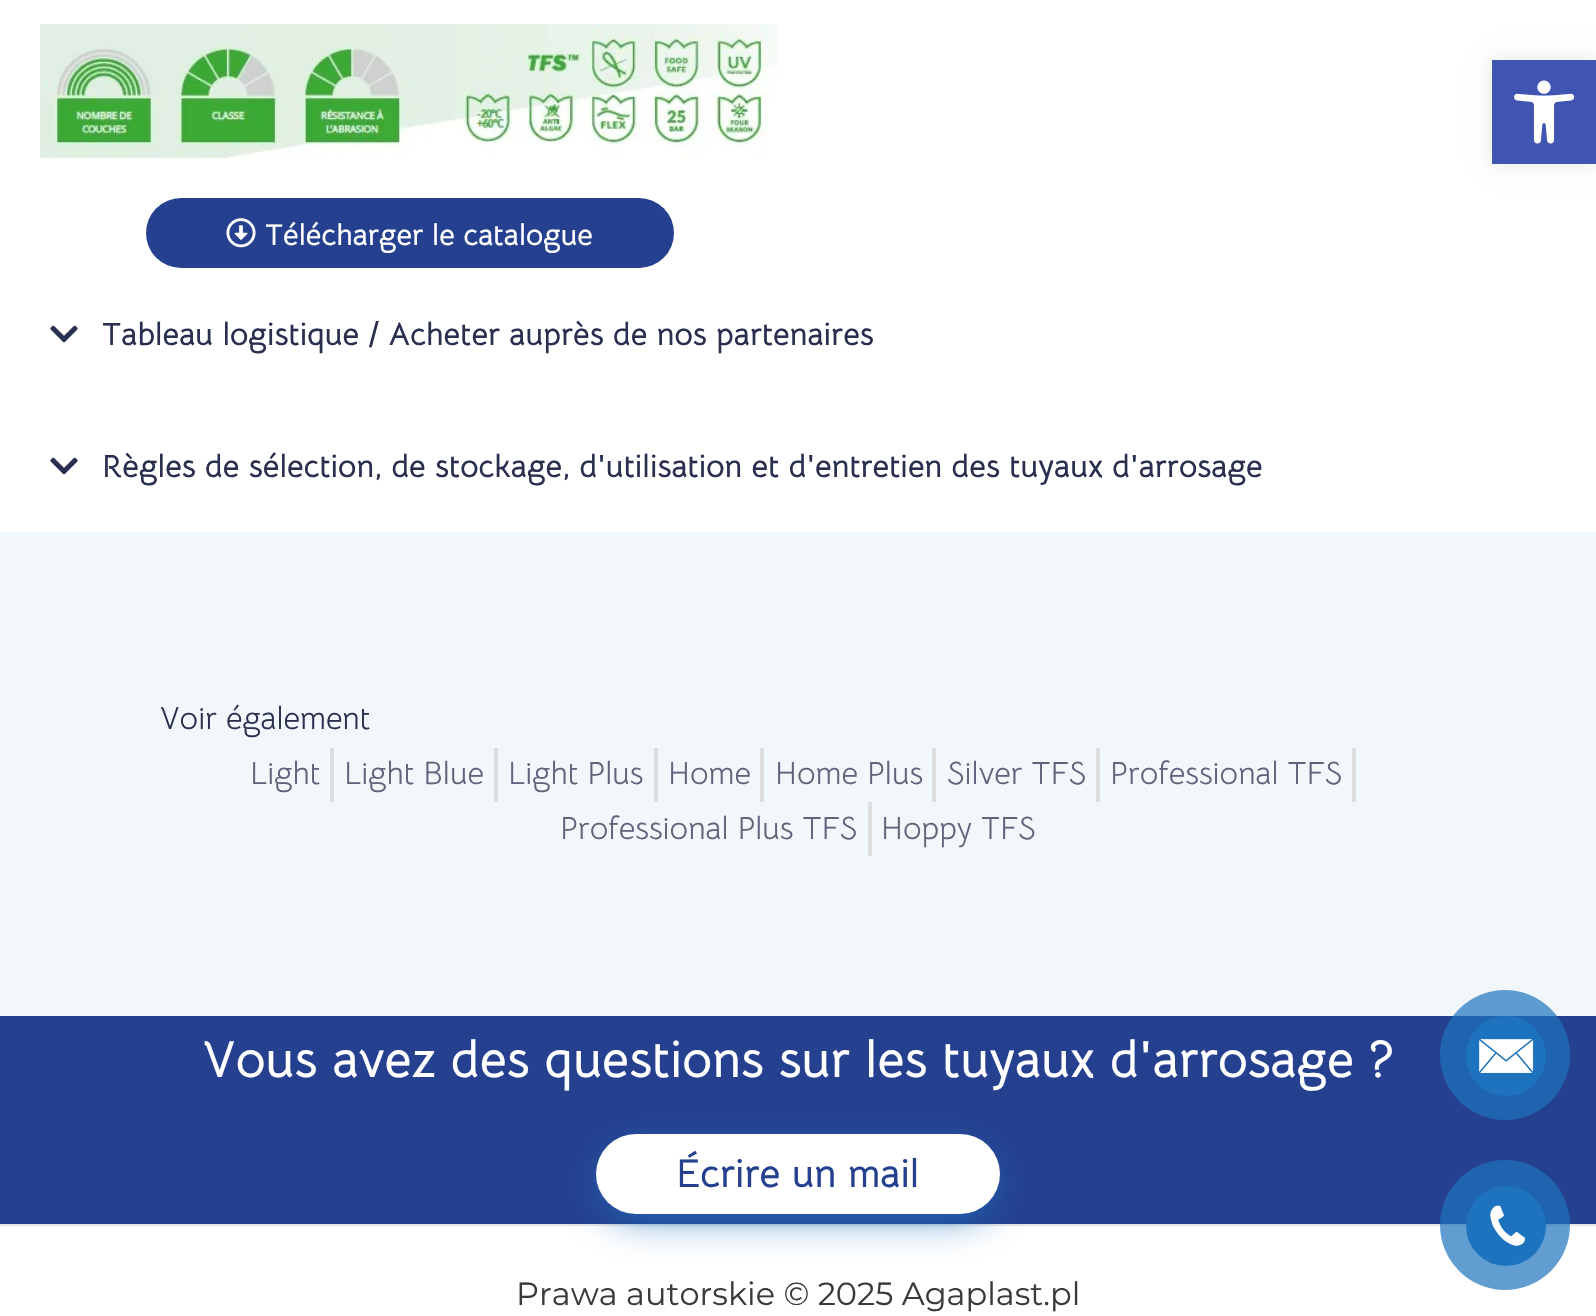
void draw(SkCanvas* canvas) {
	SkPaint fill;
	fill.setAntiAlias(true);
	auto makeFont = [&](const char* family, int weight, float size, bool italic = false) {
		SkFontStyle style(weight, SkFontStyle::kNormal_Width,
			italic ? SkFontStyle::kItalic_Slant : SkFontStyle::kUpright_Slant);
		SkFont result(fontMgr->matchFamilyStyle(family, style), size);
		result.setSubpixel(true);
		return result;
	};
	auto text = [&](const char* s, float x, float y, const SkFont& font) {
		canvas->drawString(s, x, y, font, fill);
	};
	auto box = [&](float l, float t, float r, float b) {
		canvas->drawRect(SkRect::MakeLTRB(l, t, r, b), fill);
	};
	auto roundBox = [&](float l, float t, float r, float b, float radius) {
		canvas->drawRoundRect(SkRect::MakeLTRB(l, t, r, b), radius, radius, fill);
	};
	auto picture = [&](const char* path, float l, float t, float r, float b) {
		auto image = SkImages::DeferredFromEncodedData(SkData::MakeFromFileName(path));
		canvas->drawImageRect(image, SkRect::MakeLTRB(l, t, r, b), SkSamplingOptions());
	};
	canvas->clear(0xFFFFFFFF);
	fill.setColor(0x1A000000);
	fill.setMaskFilter(SkMaskFilter::MakeBlur(kNormal_SkBlurStyle, 10));
	canvas->drawRect(SkRect::MakeLTRB(1492, 60, 1596, 164), fill);
	fill.setMaskFilter(nullptr);
	fill.setColor(0xFF4054B2);
	box(1492, 60, 1596, 164);
	picture("image0.png", 1514, 80, 1575, 144);
	picture("image1.png", 40, 24, 778, 158);
	fill.setColor(0xFF24408F);
	roundBox(146, 198, 674, 268, 35);
	picture("image2.png", 226, 218, 256, 248);
	picture("image3.png", 50, 325, 78, 343);
	picture("image3.png", 50, 457, 78, 475);
	fill.setColor(0xFFF2F7FB);
	box(0, 532, 1596, 1016);
	fill.setColor(0xFFDDDDDD);
	box(330, 748, 334, 802);
	box(494, 748, 498, 802);
	box(654, 748, 658, 802);
	box(760, 748, 764, 802);
	box(932, 748, 936, 802);
	box(1096, 748, 1100, 802);
	box(1352, 748, 1356, 802);
	box(868, 802, 872, 856);
	fill.setColor(0xFF24408F);
	box(0, 1016, 1596, 1224);
	fill.setColor(0xFFE5E5E5);
	box(0, 1224, 1596, 1226);
	fill.setColor(0xFF1E73BE);
	fill.setMaskFilter(SkMaskFilter::MakeBlur(kNormal_SkBlurStyle, 20));
	canvas->drawRoundRect(SkRect::MakeLTRB(606, 1154, 990, 1214), 30, 30, fill);
	fill.setMaskFilter(nullptr);
	fill.setColor(0xFFFFFFFF);
	roundBox(596, 1134, 1000, 1214, 40);
	fill.setColor(0xB31E73BE);
	canvas->drawCircle(1505, 1055, 65, fill);
	fill.setColor(0xFF1E73BE);
	canvas->drawCircle(1506, 1056, 40, fill);
	picture("image4.png", 1479, 1039, 1534, 1073);
	fill.setColor(0xB31E73BE);
	canvas->drawCircle(1505, 1225, 65, fill);
	fill.setColor(0xFF1E73BE);
	canvas->drawCircle(1506, 1226, 40, fill);
	picture("image5.png", 1490, 1205, 1525, 1246);
	auto font1 = makeFont("Bellota Text", 700, 30);
	fill.setColor(0xFFFFFFFF);
	text("Télécharger le catalogue", 265, 245, font1);
	auto font2 = makeFont("Bellota Text", 700, 32);
	fill.setColor(0xFF2A2F4F);
	text("Tableau logistique / Acheter auprès de nos partenaires", 102, 345, font2);
	text("Règles de sélection, de stockage, d'utilisation et d'entretien des tuyaux d'arrosage", 102, 477, font2);
	auto font3 = makeFont("Bellota Text", 400, 32);
	text("Voir également", 160, 729, font3);
	fill.setColor(0xFF5F647C);
	text("Light", 250, 784, font3);
	text("Light Blue", 344, 784, font3);
	text("Light Plus", 508, 784, font3);
	text("Home", 668, 784, font3);
	text("Home Plus", 775, 784, font3);
	text("Silver TFS", 947, 784, font3);
	text("Professional TFS", 1110, 784, font3);
	text("Professional Plus TFS", 560, 839, font3);
	text("Hoppy TFS", 881, 839, font3);
	auto font4 = makeFont("Bellota Text", 700, 52);
	fill.setColor(0xFFFFFFFF);
	text("Vous avez des questions sur les tuyaux d'arrosage ?", 203, 1077, font4);
	auto font5 = makeFont("Bellota Text", 700, 40);
	fill.setColor(0xFF24408F);
	text("Écrire un mail", 676, 1187, font5);
	auto font6 = makeFont("Montserrat", 400, 32);
	fill.setColor(0xFF3A3A3A);
	text("Prawa autorskie © 2025 Agaplast.pl", 516, 1305, font6);
}
